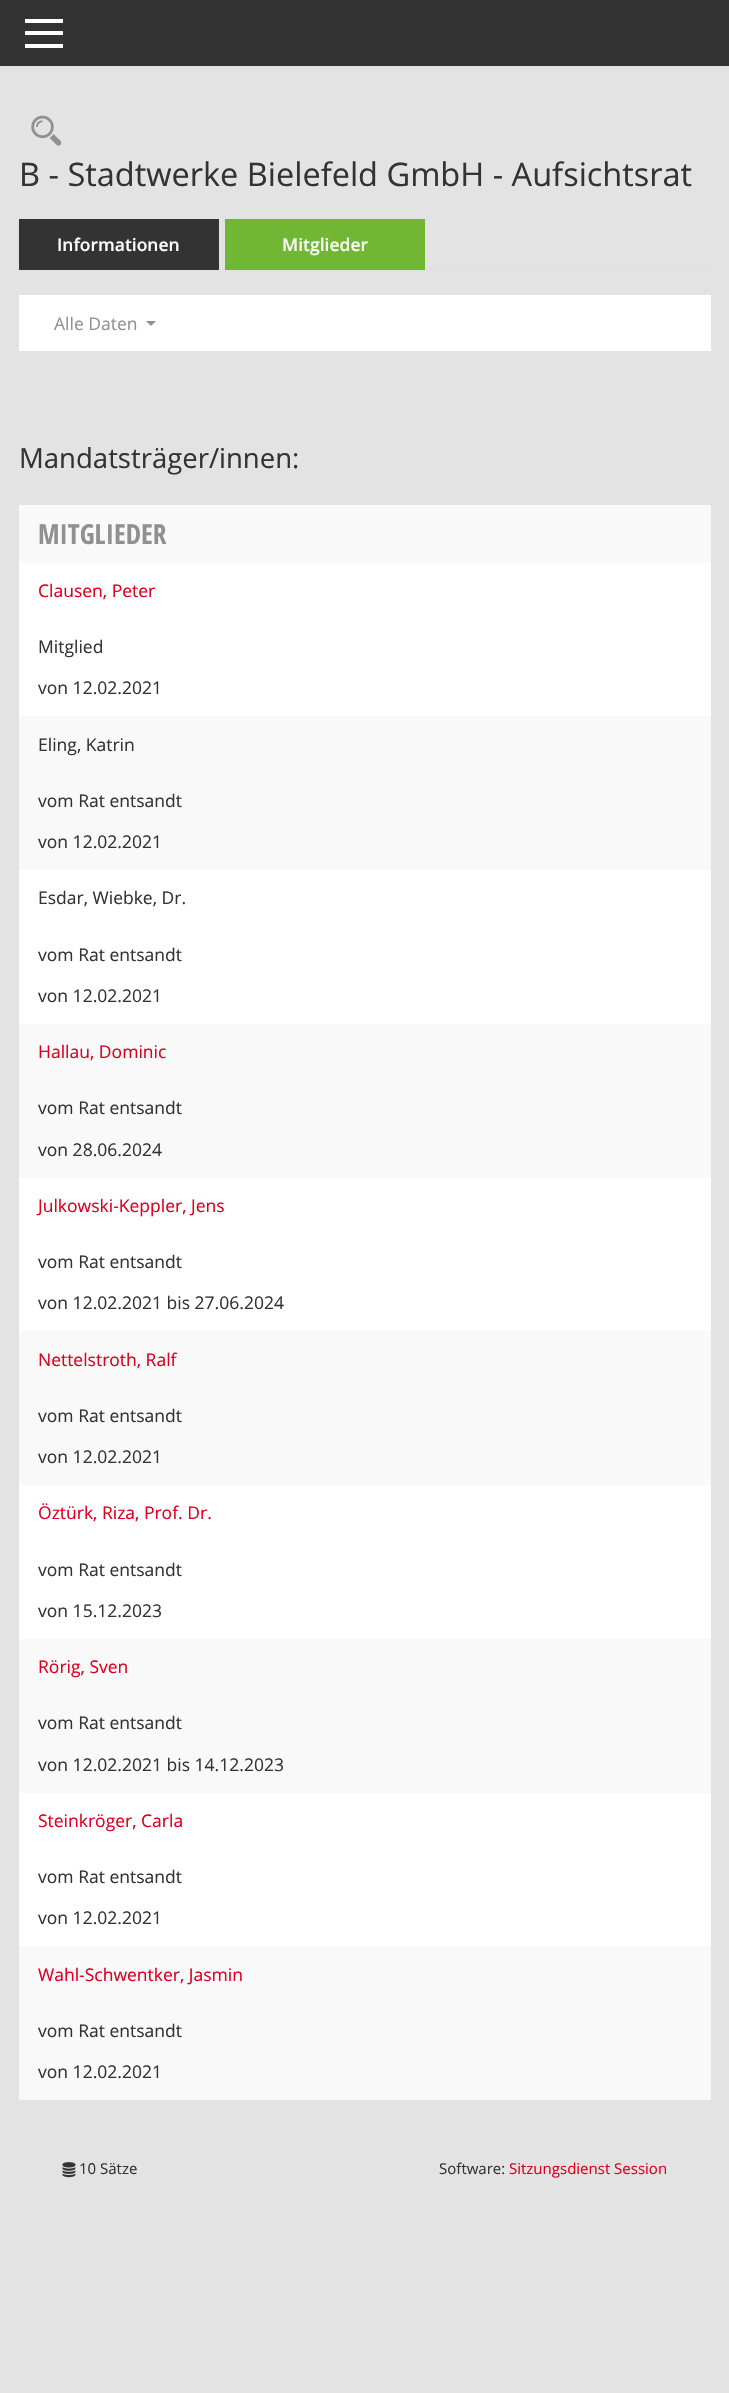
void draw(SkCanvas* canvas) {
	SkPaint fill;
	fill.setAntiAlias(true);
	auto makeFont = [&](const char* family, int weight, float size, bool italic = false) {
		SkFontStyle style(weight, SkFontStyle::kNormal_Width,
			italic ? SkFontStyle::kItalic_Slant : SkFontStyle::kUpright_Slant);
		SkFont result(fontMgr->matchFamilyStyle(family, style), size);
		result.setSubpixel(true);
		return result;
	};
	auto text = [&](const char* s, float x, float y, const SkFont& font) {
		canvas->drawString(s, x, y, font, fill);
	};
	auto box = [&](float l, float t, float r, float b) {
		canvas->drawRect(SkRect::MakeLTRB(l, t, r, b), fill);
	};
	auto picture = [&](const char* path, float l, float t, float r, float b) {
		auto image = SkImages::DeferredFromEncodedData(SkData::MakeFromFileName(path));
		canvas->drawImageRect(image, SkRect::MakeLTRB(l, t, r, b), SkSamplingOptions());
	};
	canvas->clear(0xFFE3E3E3);
	fill.setColor(0xFF333333);
	box(0, 0, 729, 66);
	fill.setColor(0xFFFFFFFF);
	box(25, 19, 63, 23);
	box(25, 31, 63, 35);
	box(25, 44, 63, 48);
	picture("image0.png", 31, 115, 62, 146);
	fill.setColor(0xFFDEE2E6);
	box(219, 269, 711, 270);
	fill.setColor(0xFF333333);
	box(19, 219, 219, 270);
	fill.setColor(0xFF71B733);
	box(225, 219, 425, 270);
	fill.setColor(0xFFFFFFFF);
	box(19, 295, 711, 351);
	fill.setColor(0xFF909090);
	canvas->drawPath(SkPathBuilder().moveTo(146, 321).lineTo(156, 321).lineTo(151, 326).close().detach(), fill);
	fill.setColor(0xFFFFFFFF);
	box(19, 563, 711, 1946);
	fill.setColor(0xFFF9F9F9);
	box(19, 505, 711, 563);
	box(19, 716, 711, 870);
	box(19, 1024, 711, 1178);
	box(19, 1331, 711, 1485);
	box(19, 1639, 711, 1793);
	box(19, 1946, 711, 2100);
	picture("image1.png", 62, 2162, 76, 2178);
	auto font1 = makeFont("Open Sans", 400, 32.5f);
	fill.setColor(0xFF333333);
	text("B - Stadtwerke Bielefeld GmbH - Aufsichtsrat", 19, 186, font1);
	auto font2 = makeFont("Open Sans", 600, 17.5f);
	fill.setColor(0xFFFFFFFF);
	text("Informationen", 57, 251, font2);
	text("Mitglieder", 282, 251, font2);
	auto font3 = makeFont("Open Sans", 400, 17.5f);
	fill.setColor(0xFF909090);
	text("Alle Daten", 54, 330, font3);
	auto font4 = makeFont("Open Sans", 400, 27.5f);
	fill.setColor(0xFF333333);
	text("Mandatsträger/innen:", 19, 468, font4);
	auto font5 = makeFont("Open Sans Condensed", 700, 27.5f);
	fill.setColor(0xFF909090);
	text("MITGLIEDER", 38, 544, font5);
	fill.setColor(0xFFDE0020);
	text("Clausen, Peter", 38, 597, font3);
	fill.setColor(0xFF333333);
	text("Mitglied", 38, 653, font3);
	text("von 12.02.2021", 38, 694, font3);
	text("Eling, Katrin", 38, 751, font3);
	text("vom Rat entsandt", 38, 807, font3);
	text("von 12.02.2021", 38, 848, font3);
	text("Esdar, Wiebke, Dr.", 38, 904, font3);
	text("vom Rat entsandt", 38, 961, font3);
	text("von 12.02.2021", 38, 1002, font3);
	fill.setColor(0xFFDE0020);
	text("Hallau, Dominic", 38, 1058, font3);
	fill.setColor(0xFF333333);
	text("vom Rat entsandt", 38, 1114, font3);
	text("von 28.06.2024", 38, 1156, font3);
	fill.setColor(0xFFDE0020);
	text("Julkowski-Keppler, Jens", 38, 1212, font3);
	fill.setColor(0xFF333333);
	text("vom Rat entsandt", 38, 1268, font3);
	text("von 12.02.2021 bis 27.06.2024", 38, 1309, font3);
	fill.setColor(0xFFDE0020);
	text("Nettelstroth, Ralf", 38, 1366, font3);
	fill.setColor(0xFF333333);
	text("vom Rat entsandt", 38, 1422, font3);
	text("von 12.02.2021", 38, 1463, font3);
	fill.setColor(0xFFDE0020);
	text("Öztürk, Riza, Prof. Dr.", 38, 1519, font3);
	fill.setColor(0xFF333333);
	text("vom Rat entsandt", 38, 1576, font3);
	text("von 15.12.2023", 38, 1617, font3);
	fill.setColor(0xFFDE0020);
	text("Rörig, Sven", 38, 1673, font3);
	fill.setColor(0xFF333333);
	text("vom Rat entsandt", 38, 1729, font3);
	text("von 12.02.2021 bis 14.12.2023", 38, 1771, font3);
	fill.setColor(0xFFDE0020);
	text("Steinkröger, Carla", 38, 1827, font3);
	fill.setColor(0xFF333333);
	text("vom Rat entsandt", 38, 1883, font3);
	text("von 12.02.2021", 38, 1924, font3);
	fill.setColor(0xFFDE0020);
	text("Wahl-Schwentker, Jasmin", 38, 1981, font3);
	fill.setColor(0xFF333333);
	text("vom Rat entsandt", 38, 2037, font3);
	text("von 12.02.2021", 38, 2078, font3);
	auto font6 = makeFont("Open Sans", 400, 15);
	text("10 Sätze", 79, 2174, font6);
	text("Software:", 439, 2174, font6);
	fill.setColor(0xFFDE0020);
	text("Sitzungsdienst Session", 509, 2174, font6);
}
